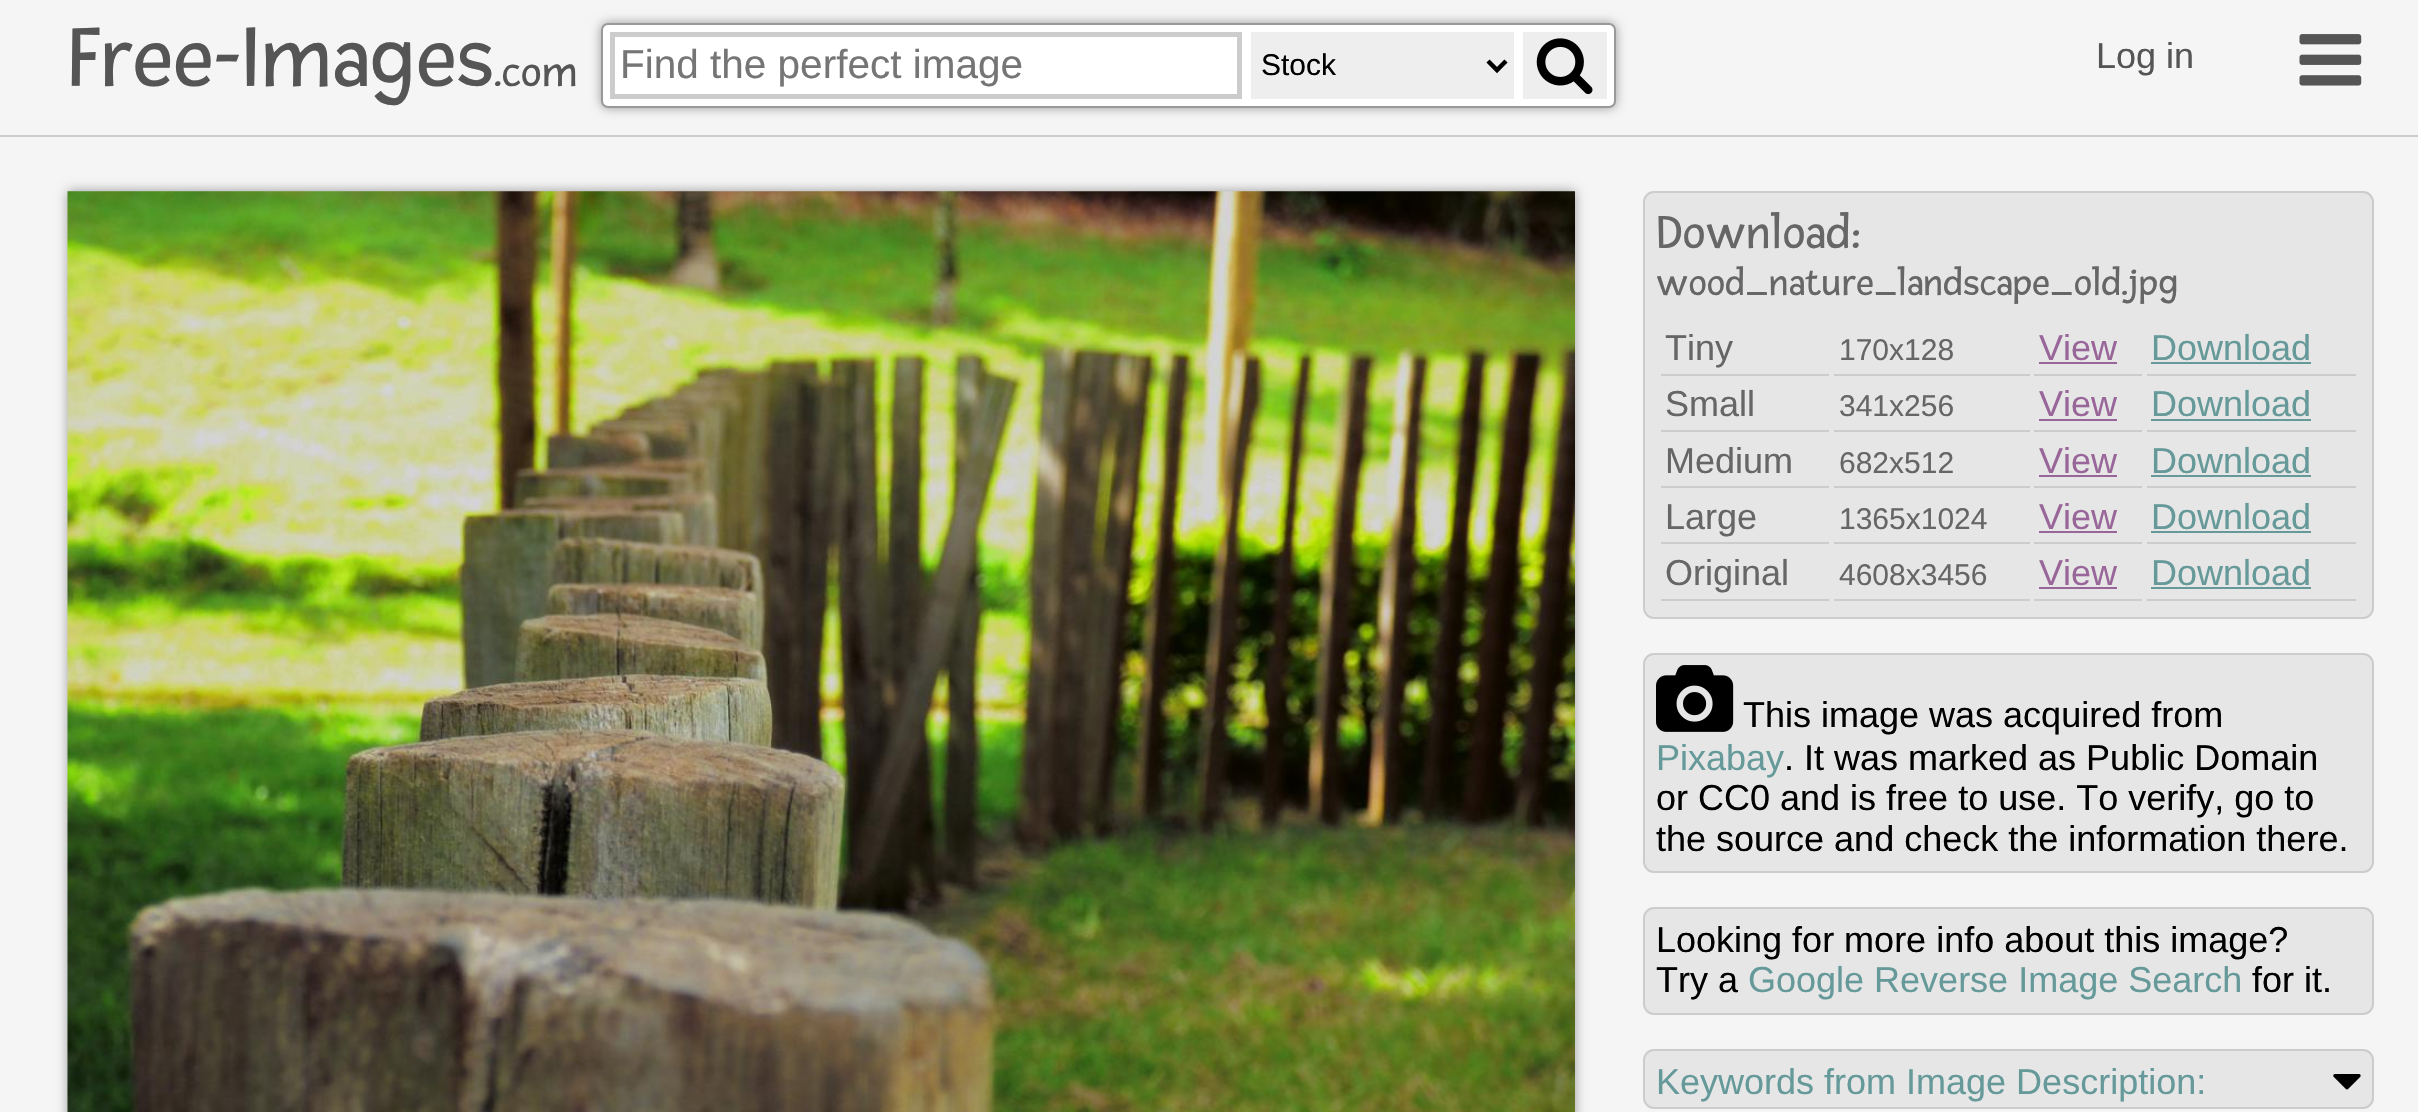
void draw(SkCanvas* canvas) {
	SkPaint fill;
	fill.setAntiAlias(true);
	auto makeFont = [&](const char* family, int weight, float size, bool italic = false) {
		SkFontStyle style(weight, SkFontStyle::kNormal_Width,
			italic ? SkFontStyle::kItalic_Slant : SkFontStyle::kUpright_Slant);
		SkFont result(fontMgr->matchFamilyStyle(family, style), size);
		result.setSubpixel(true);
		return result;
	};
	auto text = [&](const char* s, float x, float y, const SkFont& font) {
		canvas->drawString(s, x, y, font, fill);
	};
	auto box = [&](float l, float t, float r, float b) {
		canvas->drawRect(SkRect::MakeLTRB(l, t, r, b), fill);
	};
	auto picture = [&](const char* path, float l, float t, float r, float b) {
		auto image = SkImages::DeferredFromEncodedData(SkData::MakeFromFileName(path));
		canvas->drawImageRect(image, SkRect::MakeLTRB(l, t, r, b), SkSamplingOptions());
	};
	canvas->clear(0xFFF5F5F5);
	fill.setColor(0xFFCCCCCC);
	box(0, 135, 2418, 137);
	fill.setColor(0xFF999999);
	fill.setMaskFilter(SkMaskFilter::MakeBlur(kNormal_SkBlurStyle, 5.5f));
	canvas->drawRoundRect(SkRect::MakeLTRB(601, 23, 1616, 108), 7, 7, fill);
	fill.setMaskFilter(nullptr);
	fill.setColor(0xFFFFFFFF);
	canvas->drawRoundRect(SkRect::MakeLTRB(602, 24, 1615, 107), 6, 6, fill);
	fill.setStyle(SkPaint::kStroke_Style);
	fill.setStrokeWidth(2);
	fill.setColor(0xFF999999);
	canvas->drawRoundRect(SkRect::MakeLTRB(602, 24, 1615, 107), 6, 6, fill);
	fill.setStrokeWidth(5);
	fill.setColor(0xFFCCCCCC);
	canvas->drawRect(SkRect::MakeLTRB(612.5f, 34.5f, 1239.5f, 96.5f), fill);
	fill.setStyle(SkPaint::kFill_Style);
	fill.setColor(0xFFEEEEEE);
	box(1251, 32, 1514, 99);
	fill.setStyle(SkPaint::kStroke_Style);
	fill.setStrokeWidth(4.5f);
	fill.setColor(0xFF000000);
	canvas->drawPath(SkPathBuilder().moveTo(1488, 61).lineTo(1497, 70).lineTo(1506, 61).detach(), fill);
	fill.setStyle(SkPaint::kFill_Style);
	fill.setColor(0xFFEEEEEE);
	box(1523, 32, 1607, 99);
	picture("image0.png", 1536, 38, 1593, 95);
	picture("image1.png", 2299, 34, 2362, 86);
	fill.setColor(0xFF999999);
	fill.setMaskFilter(SkMaskFilter::MakeBlur(kNormal_SkBlurStyle, 5.5f));
	canvas->drawRect(SkRect::MakeLTRB(68, 191, 1575, 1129), fill);
	fill.setMaskFilter(nullptr);
	picture("image2.png", 67, 191, 1575, 1112);
	fill.setColor(0xFFE6E6E6);
	canvas->drawRoundRect(SkRect::MakeLTRB(1644, 192, 2373, 618), 10, 10, fill);
	fill.setStyle(SkPaint::kStroke_Style);
	fill.setStrokeWidth(2);
	fill.setColor(0xFFCCCCCC);
	canvas->drawRoundRect(SkRect::MakeLTRB(1644, 192, 2373, 618), 10, 10, fill);
	fill.setStyle(SkPaint::kFill_Style);
	box(1661, 374, 1829, 376);
	box(1834, 374, 2030, 376);
	box(2034, 374, 2142, 376);
	fill.setColor(0xFF996699);
	box(2039, 362, 2117, 364);
	fill.setColor(0xFFCCCCCC);
	box(2147, 374, 2356, 376);
	fill.setColor(0xFF669999);
	box(2151, 362, 2311, 364);
	fill.setColor(0xFFCCCCCC);
	box(1661, 430, 1829, 432);
	box(1834, 430, 2030, 432);
	box(2034, 430, 2142, 432);
	fill.setColor(0xFF996699);
	box(2039, 419, 2117, 421);
	fill.setColor(0xFFCCCCCC);
	box(2147, 430, 2356, 432);
	fill.setColor(0xFF669999);
	box(2151, 419, 2311, 421);
	fill.setColor(0xFFCCCCCC);
	box(1661, 486, 1829, 488);
	box(1834, 486, 2030, 488);
	box(2034, 486, 2142, 488);
	fill.setColor(0xFF996699);
	box(2039, 475, 2117, 477);
	fill.setColor(0xFFCCCCCC);
	box(2147, 486, 2356, 488);
	fill.setColor(0xFF669999);
	box(2151, 475, 2311, 477);
	fill.setColor(0xFFCCCCCC);
	box(1661, 542, 1829, 544);
	box(1834, 542, 2030, 544);
	box(2034, 542, 2142, 544);
	fill.setColor(0xFF996699);
	box(2039, 531, 2117, 533);
	fill.setColor(0xFFCCCCCC);
	box(2147, 542, 2356, 544);
	fill.setColor(0xFF669999);
	box(2151, 531, 2311, 533);
	fill.setColor(0xFFCCCCCC);
	box(1661, 599, 1829, 601);
	box(1834, 599, 2030, 601);
	box(2034, 599, 2142, 601);
	fill.setColor(0xFF996699);
	box(2039, 587, 2117, 589);
	fill.setColor(0xFFCCCCCC);
	box(2147, 599, 2356, 601);
	fill.setColor(0xFF669999);
	box(2151, 587, 2311, 589);
	fill.setColor(0xFFE6E6E6);
	canvas->drawRoundRect(SkRect::MakeLTRB(1644, 654, 2373, 872), 10, 10, fill);
	fill.setStyle(SkPaint::kStroke_Style);
	fill.setColor(0xFFCCCCCC);
	canvas->drawRoundRect(SkRect::MakeLTRB(1644, 654, 2373, 872), 10, 10, fill);
	picture("image3.png", 1656, 665, 1734, 732);
	fill.setStyle(SkPaint::kFill_Style);
	fill.setColor(0xFFE6E6E6);
	canvas->drawRoundRect(SkRect::MakeLTRB(1644, 908, 2373, 1014), 10, 10, fill);
	fill.setStyle(SkPaint::kStroke_Style);
	fill.setColor(0xFFCCCCCC);
	canvas->drawRoundRect(SkRect::MakeLTRB(1644, 908, 2373, 1014), 10, 10, fill);
	fill.setStyle(SkPaint::kFill_Style);
	fill.setColor(0xFFE6E6E6);
	canvas->drawRoundRect(SkRect::MakeLTRB(1644, 1050, 2373, 1108), 10, 10, fill);
	fill.setStyle(SkPaint::kStroke_Style);
	fill.setColor(0xFFCCCCCC);
	canvas->drawRoundRect(SkRect::MakeLTRB(1644, 1050, 2373, 1108), 10, 10, fill);
	picture("image4.png", 2333, 1074, 2361, 1090);
	auto font1 = makeFont("Fresca", 400, 90);
	fill.setStyle(SkPaint::kFill_Style);
	fill.setColor(0xFF555555);
	text("Free-Images", 68, 86, font1);
	auto font2 = makeFont("Fresca", 400, 45);
	text(".com", 494, 86, font2);
	auto font3 = makeFont("Liberation Sans", 400, 40.5f);
	fill.setColor(0xFF757575);
	text("Find the perfect image", 620, 78, font3);
	auto font4 = makeFont("Liberation Sans", 400, 30);
	fill.setColor(0xFF000000);
	text("Stock", 1261, 75, font4);
	auto font5 = makeFont("Liberation Sans", 400, 36);
	fill.setColor(0xFF555555);
	text("Log in", 2096, 68, font5);
	auto font6 = makeFont("Fresca", 400, 49.5f);
	fill.setColor(0xFF666666);
	text("Download:", 1656, 248, font6);
	auto font7 = makeFont("Fresca", 400, 39.6f);
	text("wood_nature_landscape_old.jpg", 1656, 295, font7);
	text("Tiny", 1665, 360, font5);
	text("170x128", 1839, 360, font4);
	fill.setColor(0xFF996699);
	text("View", 2039, 360, font5);
	fill.setColor(0xFF669999);
	text("Download", 2151, 360, font5);
	fill.setColor(0xFF666666);
	text("Small", 1665, 416, font5);
	text("341x256", 1839, 416, font4);
	fill.setColor(0xFF996699);
	text("View", 2039, 416, font5);
	fill.setColor(0xFF669999);
	text("Download", 2151, 416, font5);
	fill.setColor(0xFF666666);
	text("Medium", 1665, 473, font5);
	text("682x512", 1839, 473, font4);
	fill.setColor(0xFF996699);
	text("View", 2039, 473, font5);
	fill.setColor(0xFF669999);
	text("Download", 2151, 473, font5);
	fill.setColor(0xFF666666);
	text("Large", 1665, 529, font5);
	text("1365x1024", 1839, 529, font4);
	fill.setColor(0xFF996699);
	text("View", 2039, 529, font5);
	fill.setColor(0xFF669999);
	text("Download", 2151, 529, font5);
	fill.setColor(0xFF666666);
	text("Original", 1665, 585, font5);
	text("4608x3456", 1839, 585, font4);
	fill.setColor(0xFF996699);
	text("View", 2039, 585, font5);
	fill.setColor(0xFF669999);
	text("Download", 2151, 585, font5);
	fill.setColor(0xFF000000);
	text("This image was acquired from", 1743, 727, font5);
	fill.setColor(0xFF669999);
	text("Pixabay", 1656, 770, font5);
	fill.setColor(0xFF000000);
	text(". It was marked as Public Domain", 1784, 770, font5);
	text("or CC0 and is free to use. To verify, go to", 1656, 810, font5);
	text("the source and check the information there.", 1656, 851, font5);
	text("Looking for more info about this image?", 1656, 952, font5);
	text("Try a", 1656, 992, font5);
	fill.setColor(0xFF669999);
	text("Google Reverse Image Search", 1748, 992, font5);
	fill.setColor(0xFF000000);
	text("for it.", 2252, 992, font5);
	fill.setColor(0xFF669999);
	text("Keywords from Image Description:", 1656, 1094, font5);
}
